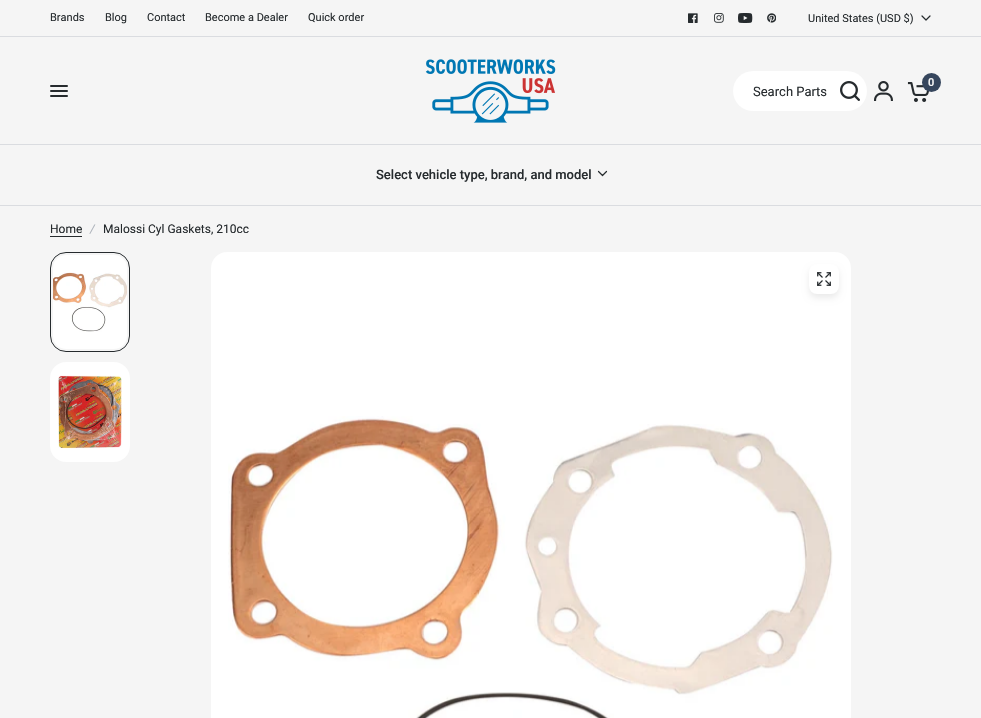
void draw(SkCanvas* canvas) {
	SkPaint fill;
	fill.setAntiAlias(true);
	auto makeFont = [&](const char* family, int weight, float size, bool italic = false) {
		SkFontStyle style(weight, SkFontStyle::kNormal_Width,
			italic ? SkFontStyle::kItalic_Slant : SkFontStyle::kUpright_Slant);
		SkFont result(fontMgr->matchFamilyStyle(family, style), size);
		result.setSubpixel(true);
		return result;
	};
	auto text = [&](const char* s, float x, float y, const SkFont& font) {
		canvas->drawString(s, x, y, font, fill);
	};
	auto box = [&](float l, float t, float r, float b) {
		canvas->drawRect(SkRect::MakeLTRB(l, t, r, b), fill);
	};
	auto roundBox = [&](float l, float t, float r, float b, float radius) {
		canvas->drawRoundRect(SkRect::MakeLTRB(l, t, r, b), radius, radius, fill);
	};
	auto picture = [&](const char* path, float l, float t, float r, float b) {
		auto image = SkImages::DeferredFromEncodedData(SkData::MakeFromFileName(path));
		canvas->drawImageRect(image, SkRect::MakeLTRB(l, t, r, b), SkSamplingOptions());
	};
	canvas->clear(0xFFF5F5F5);
	fill.setColor(0xFFDADCE0);
	box(0, 36, 981, 37);
	picture("image0.png", 688, 13, 698, 23);
	picture("image1.png", 714, 13, 724, 23);
	picture("image2.png", 738, 13, 753, 23);
	picture("image3.png", 767, 13, 776, 23);
	fill.setStyle(SkPaint::kStroke_Style);
	fill.setStrokeWidth(1.2f);
	fill.setStrokeCap(SkPaint::kRound_Cap);
	fill.setStrokeJoin(SkPaint::kRound_Join);
	fill.setColor(0xFF262B2E);
	canvas->drawPath(SkPathBuilder().moveTo(922, 16).lineTo(926, 20).lineTo(930, 16).detach(), fill);
	fill.setStyle(SkPaint::kFill_Style);
	roundBox(50, 85, 68, 87, 1);
	roundBox(50, 90, 68, 92, 1);
	roundBox(50, 95, 68, 97, 1);
	picture("image4.png", 425, 59, 556, 123);
	fill.setColor(0xFFFFFFFF);
	roundBox(733, 71, 867, 111, 20);
	picture("image5.png", 840, 81, 860, 101);
	picture("image6.png", 874, 81, 893, 101);
	picture("image7.png", 907, 82, 929, 102);
	fill.setColor(0xFF36465D);
	canvas->drawCircle(931.5f, 82.5f, 9.5f, fill);
	fill.setColor(0xFFDADCE0);
	box(0, 144, 981, 145);
	box(0, 205, 981, 206);
	fill.setStyle(SkPaint::kStroke_Style);
	fill.setColor(0xFF262B2E);
	canvas->drawPath(SkPathBuilder().moveTo(606.5f, 171.5f).lineTo(602.5f, 175.5f).lineTo(598.5f, 171.5f).detach(), fill);
	fill.setStyle(SkPaint::kFill_Style);
	box(50, 236, 82, 237);
	fill.setColor(0xFFFFFFFF);
	roundBox(50, 252, 130, 352, 16);
	picture("image8.png", 53, 272, 127, 332);
	fill.setStyle(SkPaint::kStroke_Style);
	fill.setStrokeWidth(3);
	fill.setStrokeCap(SkPaint::kButt_Cap);
	fill.setStrokeJoin(SkPaint::kMiter_Join);
	fill.setColor(0xFFF5F5F5);
	canvas->drawRoundRect(SkRect::MakeLTRB(51.5f, 253.5f, 128.5f, 350.5f), 14.5f, 14.5f, fill);
	fill.setStrokeWidth(1);
	fill.setColor(0xFF262B2E);
	canvas->drawRoundRect(SkRect::MakeLTRB(50.5f, 252.5f, 129.5f, 351.5f), 15.5f, 15.5f, fill);
	fill.setStyle(SkPaint::kFill_Style);
	fill.setColor(0xFFFFFFFF);
	roundBox(50, 362, 130, 462, 16);
	picture("image9.png", 58, 375, 122, 449);
	roundBox(211, 252, 851, 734, 16);
	picture("image10.png", 228, 416, 833, 718);
	fill.setColor(0x14000000);
	fill.setMaskFilter(SkMaskFilter::MakeBlur(kNormal_SkBlurStyle, 3));
	canvas->drawRoundRect(SkRect::MakeLTRB(809, 268, 839, 298), 8, 8, fill);
	fill.setMaskFilter(nullptr);
	fill.setColor(0xFFFFFFFF);
	roundBox(809, 264, 839, 294, 8);
	picture("image11.png", 817, 272, 831, 286);
	auto font1 = makeFont("Roboto", 400, 11);
	fill.setColor(0xFF262B2E);
	text("Brands", 50, 21, font1);
	text("Blog", 105, 21, font1);
	text("Contact", 147, 21, font1);
	text("Become a Dealer", 205, 21, font1);
	text("Quick order", 308, 21, font1);
	text("United States (USD $)", 808, 22, font1);
	auto font2 = makeFont("Roboto", 400, 13);
	text("Search Parts", 753, 96, font2);
	auto font3 = makeFont("Roboto", 600, 11);
	fill.setColor(0xFFF5F5F5);
	text("0", 928, 86, font3);
	auto font4 = makeFont("Roboto", 500, 13);
	fill.setColor(0xFF262B2E);
	text("Select vehicle type, brand, and model", 376, 179, font4);
	auto font5 = makeFont("Roboto", 400, 12);
	text("Home", 50, 233, font5);
	auto font6 = makeFont("Roboto", 400, 12, true);
	fill.setColor(0xFFADB3BB);
	text("/", 90, 233, font6);
	fill.setColor(0xFF262B2E);
	text("Malossi Cyl Gaskets, 210cc", 103, 233, font5);
}
